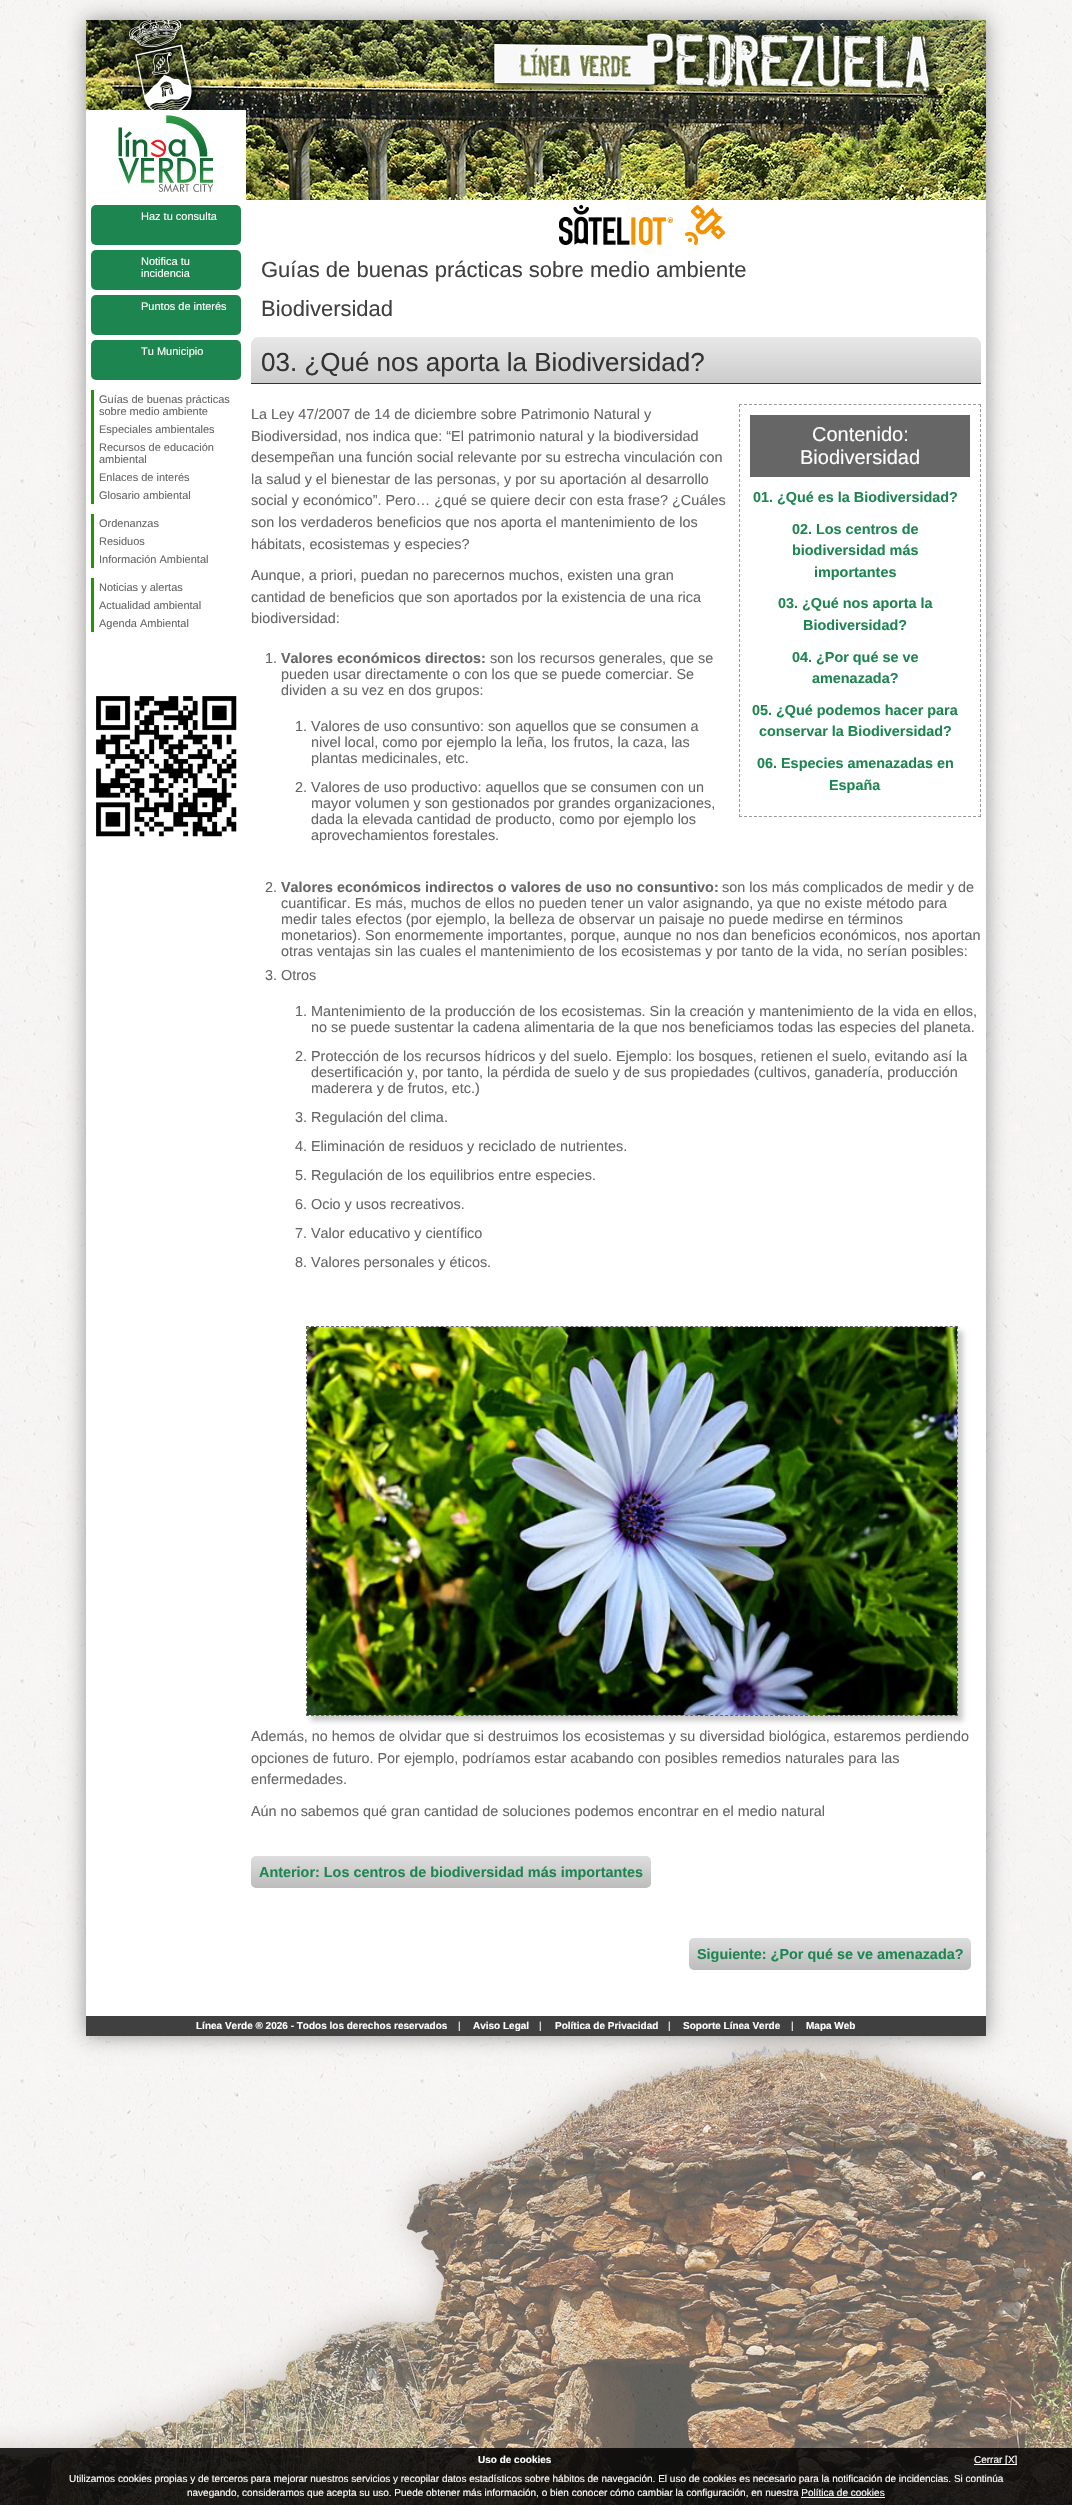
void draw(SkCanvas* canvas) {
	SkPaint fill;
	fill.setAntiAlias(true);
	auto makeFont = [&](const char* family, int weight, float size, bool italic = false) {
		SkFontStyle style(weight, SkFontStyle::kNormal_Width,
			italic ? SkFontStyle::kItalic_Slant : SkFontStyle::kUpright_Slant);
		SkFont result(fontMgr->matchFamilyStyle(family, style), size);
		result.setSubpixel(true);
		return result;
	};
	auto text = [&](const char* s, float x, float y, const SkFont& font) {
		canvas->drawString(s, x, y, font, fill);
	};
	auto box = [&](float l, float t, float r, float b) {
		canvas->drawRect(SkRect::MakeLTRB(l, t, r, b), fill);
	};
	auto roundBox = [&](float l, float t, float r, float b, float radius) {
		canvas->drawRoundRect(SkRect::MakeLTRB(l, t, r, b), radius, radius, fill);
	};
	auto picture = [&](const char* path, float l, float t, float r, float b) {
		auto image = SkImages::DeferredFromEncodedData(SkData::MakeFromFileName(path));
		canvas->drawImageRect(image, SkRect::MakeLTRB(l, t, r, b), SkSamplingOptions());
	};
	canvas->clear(0xFFFFFFFF);
	picture("image0.png", 0, 0, 1072, 2505);
	fill.setColor(0x66000000);
	fill.setMaskFilter(SkMaskFilter::MakeBlur(kNormal_SkBlurStyle, 10));
	canvas->drawRect(SkRect::MakeLTRB(86, 20, 986, 2036), fill);
	fill.setMaskFilter(nullptr);
	fill.setColor(0xFFFFFFFF);
	box(86, 110, 986, 2016);
	picture("image1.png", 86, 20, 986, 110);
	picture("image2.png", 118, 115, 214, 192);
	picture("image3.png", 246, 110, 986, 200);
	picture("image4.png", 559, 205, 725, 245);
	fill.setColor(0xFF1D8650);
	roundBox(91, 205, 241, 245, 5);
	roundBox(91, 250, 241, 290, 5);
	roundBox(91, 295, 241, 335, 5);
	roundBox(91, 340, 241, 380, 5);
	fill.setColor(0xFF259603);
	box(91, 390, 94, 504);
	box(91, 514, 94, 568);
	box(91, 578, 94, 632);
	picture("image5.png", 96, 696, 237, 837);
	{
		const SkColor colors[] = {0xFFE8E8E8, 0xFFCCCCCC};
		const float stops[] = {0, 1};
		const SkPoint ends[] = {{616, 337}, {616, 383}};
		fill.setShader(SkGradientShader::MakeLinear(ends, colors, stops, 2, SkTileMode::kClamp));
		fill.setAlpha(255);
	}
	canvas->drawPath(SkPathBuilder().moveTo(259, 337).lineTo(973, 337).cubicTo(977.5f, 337, 981, 340.5f, 981, 345).lineTo(981, 383).lineTo(251, 383).lineTo(251, 345).cubicTo(251, 340.5f, 254.5f, 337, 259, 337).close().detach(), fill);
	fill.setShader(nullptr);
	fill.setColor(0xFF333333);
	box(251, 383, 981, 384);
	fill.setStyle(SkPaint::kStroke_Style);
	fill.setStrokeWidth(1);
	fill.setColor(0xFF999999);
	fill.setPathEffect(SkDashPathEffect::Make({{3, 1.98f}}, 0));
	canvas->drawPath(SkPathBuilder().moveTo(739, 404.5f).lineTo(981, 404.5f).detach(), fill);
	fill.setPathEffect(nullptr);
	fill.setPathEffect(SkDashPathEffect::Make({{3, 2}}, 0));
	canvas->drawPath(SkPathBuilder().moveTo(980.5f, 404).lineTo(980.5f, 817).detach(), fill);
	fill.setPathEffect(nullptr);
	fill.setPathEffect(SkDashPathEffect::Make({{3, 1.98f}}, 0));
	canvas->drawPath(SkPathBuilder().moveTo(739, 816.5f).lineTo(981, 816.5f).detach(), fill);
	fill.setPathEffect(nullptr);
	fill.setPathEffect(SkDashPathEffect::Make({{3, 2}}, 0));
	canvas->drawPath(SkPathBuilder().moveTo(739.5f, 404).lineTo(739.5f, 817).detach(), fill);
	fill.setPathEffect(nullptr);
	fill.setStyle(SkPaint::kFill_Style);
	fill.setColor(0xFF666666);
	box(750, 415, 970, 477);
	fill.setColor(0xFFCCCCCC);
	fill.setMaskFilter(SkMaskFilter::MakeBlur(kNormal_SkBlurStyle, 2.5f));
	canvas->drawRect(SkRect::MakeLTRB(311, 1331, 963, 1721), fill);
	fill.setMaskFilter(nullptr);
	fill.setStyle(SkPaint::kStroke_Style);
	fill.setColor(0xFF666666);
	fill.setPathEffect(SkDashPathEffect::Make({{3, 1.99f}}, 0));
	canvas->drawPath(SkPathBuilder().moveTo(306, 1326.5f).lineTo(958, 1326.5f).detach(), fill);
	fill.setPathEffect(nullptr);
	fill.setPathEffect(SkDashPathEffect::Make({{3, 2.03f}}, 0));
	canvas->drawPath(SkPathBuilder().moveTo(957.5f, 1326).lineTo(957.5f, 1716).detach(), fill);
	fill.setPathEffect(nullptr);
	fill.setPathEffect(SkDashPathEffect::Make({{3, 1.99f}}, 0));
	canvas->drawPath(SkPathBuilder().moveTo(306, 1715.5f).lineTo(958, 1715.5f).detach(), fill);
	fill.setPathEffect(nullptr);
	fill.setPathEffect(SkDashPathEffect::Make({{3, 2.03f}}, 0));
	canvas->drawPath(SkPathBuilder().moveTo(306.5f, 1326).lineTo(306.5f, 1716).detach(), fill);
	fill.setPathEffect(nullptr);
	picture("image6.png", 307, 1327, 957, 1715);
	fill.setStyle(SkPaint::kFill_Style);
	{
		const SkColor colors[] = {0xFFDEDEDE, 0xFFBCBCBC};
		const float stops[] = {0, 1};
		const SkPoint ends[] = {{451, 1856}, {451, 1888}};
		fill.setShader(SkGradientShader::MakeLinear(ends, colors, stops, 2, SkTileMode::kClamp));
		fill.setAlpha(255);
	}
	roundBox(251, 1856, 651, 1888, 5);
	{
		const SkColor colors[] = {0xFFDEDEDE, 0xFFBCBCBC};
		const float stops[] = {0, 1};
		const SkPoint ends[] = {{830, 1938}, {830, 1970}};
		fill.setShader(SkGradientShader::MakeLinear(ends, colors, stops, 2, SkTileMode::kClamp));
		fill.setAlpha(255);
	}
	roundBox(689, 1938, 971, 1970, 5);
	fill.setShader(nullptr);
	fill.setColor(0xFF414041);
	box(86, 2016, 986, 2036);
	fill.setColor(0xD9000000);
	box(0, 2448, 1072, 2505);
	fill.setColor(0xFFFFFFFF);
	box(974, 2464, 1017, 2465);
	box(801, 2497, 885, 2498);
	auto font1 = makeFont("Liberation Sans", 400, 11);
	text("Haz tu consulta", 141, 220, font1);
	text("Notifica tu", 141, 265, font1);
	text("incidencia", 141, 277, font1);
	text("Puntos de interés", 141, 310, font1);
	text("Tu Municipio", 141, 355, font1);
	fill.setColor(0xFF666666);
	text("Guías de buenas prácticas", 99, 403, font1);
	text("sobre medio ambiente", 99, 415, font1);
	text("Especiales ambientales", 99, 433, font1);
	text("Recursos de educación", 99, 451, font1);
	text("ambiental", 99, 463, font1);
	text("Enlaces de interés", 99, 481, font1);
	text("Glosario ambiental", 99, 499, font1);
	text("Ordenanzas", 99, 527, font1);
	text("Residuos", 99, 545, font1);
	text("Información Ambiental", 99, 563, font1);
	text("Noticias y alertas", 99, 591, font1);
	text("Actualidad ambiental", 99, 609, font1);
	text("Agenda Ambiental", 99, 627, font1);
	auto font2 = makeFont("Liberation Sans", 400, 22);
	fill.setColor(0xFF414041);
	text("Guías de buenas prácticas sobre medio ambiente", 261, 277, font2);
	text("Biodiversidad", 261, 316, font2);
	auto font3 = makeFont("Liberation Sans", 400, 26);
	fill.setColor(0xFF333333);
	text("03. ¿Qué nos aporta la Biodiversidad?", 261, 371, font3);
	auto font4 = makeFont("Liberation Sans", 400, 14.4f);
	fill.setColor(0xFF666666);
	text("La Ley 47/2007 de 14 de diciembre sobre Patrimonio Natural y", 251, 419, font4);
	text("Biodiversidad, nos indica que: “El patrimonio natural y la biodiversidad", 251, 441, font4);
	text("desempeñan una función social relevante por su estrecha vinculación con", 251, 462, font4);
	text("la salud y el bienestar de las personas, y por su aportación al desarrollo", 251, 484, font4);
	text("social y económico”. Pero… ¿qué se quiere decir con esta frase? ¿Cuáles", 251, 505, font4);
	text("son los verdaderos beneficios que nos aporta el mantenimiento de los", 251, 527, font4);
	text("hábitats, ecosistemas y especies?", 251, 549, font4);
	auto font5 = makeFont("Liberation Sans", 400, 20);
	fill.setColor(0xFFFFFFFF);
	text("Contenido:", 812, 441, font5);
	text("Biodiversidad", 800, 464, font5);
	auto font6 = makeFont("Liberation Sans", 700, 14.4f);
	fill.setColor(0xFF1D8650);
	text("01. ¿Qué es la Biodiversidad?", 753, 502, font6);
	text("02. Los centros de", 792, 534, font6);
	text("biodiversidad más", 792, 555, font6);
	text("importantes", 814, 577, font6);
	text("03. ¿Qué nos aporta la", 778, 608, font6);
	text("Biodiversidad?", 803, 630, font6);
	text("04. ¿Por qué se ve", 792, 662, font6);
	text("amenazada?", 812, 683, font6);
	text("05. ¿Qué podemos hacer para", 752, 715, font6);
	text("conservar la Biodiversidad?", 759, 736, font6);
	text("06. Especies amenazadas en", 757, 768, font6);
	text("España", 829, 790, font6);
	fill.setColor(0xFF666666);
	text("Aunque, a priori, puedan no parecernos muchos, existen una gran", 251, 580, font4);
	text("cantidad de beneficios que son aportados por la existencia de una rica", 251, 602, font4);
	text("biodiversidad:", 251, 623, font4);
	text("1.", 265, 663, font4);
	text("Valores económicos directos:", 281, 663, font6);
	text("son los recursos generales, que se", 490, 663, font4);
	text("pueden usar directamente o con los que se puede comerciar. Se", 281, 679, font4);
	text("dividen a su vez en dos grupos:", 281, 695, font4);
	text("1. Valores de uso consuntivo: son aquellos que se consumen a", 295, 731, font4);
	text("nivel local, como por ejemplo la leña, los frutos, la caza, las", 311, 747, font4);
	text("plantas medicinales, etc.", 311, 763, font4);
	text("2. Valores de uso productivo: aquellos que se consumen con un", 295, 792, font4);
	text("mayor volumen y son gestionados por grandes organizaciones,", 311, 808, font4);
	text("dada la elevada cantidad de producto, como por ejemplo los", 311, 824, font4);
	text("aprovechamientos forestales.", 311, 840, font4);
	text("2.", 265, 892, font4);
	text("Valores económicos indirectos o valores de uso no consuntivo:", 281, 892, font6);
	text("son los más complicados de medir y de", 722, 892, font4);
	text("cuantificar. Es más, muchos de ellos no pueden tener un valor asignando, ya que no existe método para", 281, 908, font4);
	text("medir tales efectos (por ejemplo, la belleza de observar un paisaje no puede medirse en términos", 281, 924, font4);
	text("monetarios). Son enormemente importantes, porque, aunque no nos dan beneficios económicos, nos aportan", 281, 940, font4);
	text("otras ventajas sin las cuales el mantenimiento de los ecosistemas y por tanto de la vida, no serían posibles:", 281, 956, font4);
	text("3. Otros", 265, 980, font4);
	text("1. Mantenimiento de la producción de los ecosistemas. Sin la creación y mantenimiento de la vida en ellos,", 295, 1016, font4);
	text("no se puede sustentar la cadena alimentaria de la que nos beneficiamos todas las especies del planeta.", 311, 1032, font4);
	text("2. Protección de los recursos hídricos y del suelo. Ejemplo: los bosques, retienen el suelo, evitando así la", 295, 1061, font4);
	text("desertificación y, por tanto, la pérdida de suelo y de sus propiedades (cultivos, ganadería, producción", 311, 1077, font4);
	text("maderera y de frutos, etc.)", 311, 1093, font4);
	text("3. Regulación del clima.", 295, 1122, font4);
	text("4. Eliminación de residuos y reciclado de nutrientes.", 295, 1151, font4);
	text("5. Regulación de los equilibrios entre especies.", 295, 1180, font4);
	text("6. Ocio y usos recreativos.", 295, 1209, font4);
	text("7. Valor educativo y científico", 295, 1238, font4);
	text("8. Valores personales y éticos.", 295, 1267, font4);
	text("Además, no hemos de olvidar que si destruimos los ecosistemas y su diversidad biológica, estaremos perdiendo", 251, 1741, font4);
	text("opciones de futuro. Por ejemplo, podríamos estar acabando con posibles remedios naturales para las", 251, 1763, font4);
	text("enfermedades.", 251, 1784, font4);
	text("Aún no sabemos qué gran cantidad de soluciones podemos encontrar en el medio natural", 251, 1816, font4);
	fill.setColor(0xFF1D8650);
	text("Anterior: Los centros de biodiversidad más importantes", 259, 1877, font6);
	text("Siguiente: ¿Por qué se ve amenazada?", 697, 1959, font6);
	auto font7 = makeFont("Liberation Sans", 700, 10);
	fill.setColor(0xFFFFFFFF);
	text("Línea Verde ® 2026 - Todos los derechos reservados", 196, 2029, font7);
	auto font8 = makeFont("Liberation Sans", 400, 10);
	text("|", 458, 2029, font8);
	text("Aviso Legal", 473, 2029, font7);
	text("|", 539, 2029, font8);
	text("Política de Privacidad", 555, 2029, font7);
	text("|", 668, 2029, font8);
	text("Soporte Línea Verde", 683, 2029, font7);
	text("|", 791, 2029, font8);
	text("Mapa Web", 806, 2029, font7);
	text("Uso de cookies", 478, 2463, font7);
	text("Cerrar [X]", 974, 2463, font8);
	text("Utilizamos cookies propias y de terceros para mejorar nuestros servicios y recopilar datos estadísticos sobre hábitos de navegación. El uso de cookies es necesario para la notificación de incidencias. Si continúa", 69, 2482, font8);
	text("navegando, consideramos que acepta su uso. Puede obtener más información, o bien conocer cómo cambiar la configuración, en nuestra Política de cookies", 187, 2496, font8);
}
